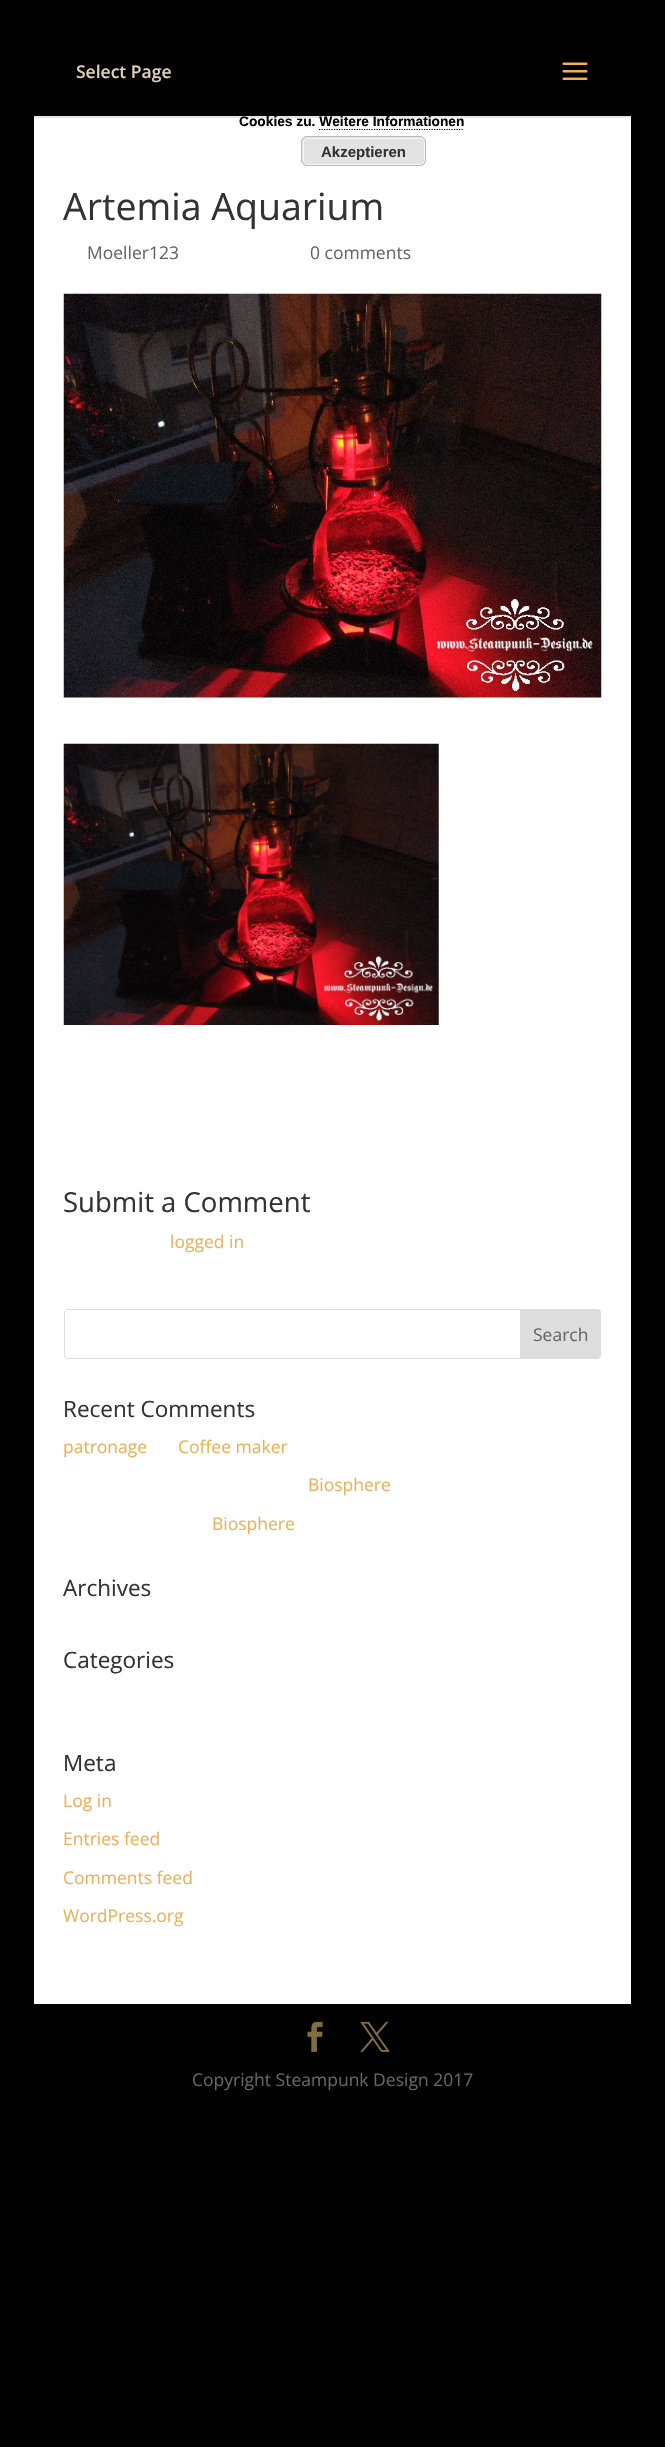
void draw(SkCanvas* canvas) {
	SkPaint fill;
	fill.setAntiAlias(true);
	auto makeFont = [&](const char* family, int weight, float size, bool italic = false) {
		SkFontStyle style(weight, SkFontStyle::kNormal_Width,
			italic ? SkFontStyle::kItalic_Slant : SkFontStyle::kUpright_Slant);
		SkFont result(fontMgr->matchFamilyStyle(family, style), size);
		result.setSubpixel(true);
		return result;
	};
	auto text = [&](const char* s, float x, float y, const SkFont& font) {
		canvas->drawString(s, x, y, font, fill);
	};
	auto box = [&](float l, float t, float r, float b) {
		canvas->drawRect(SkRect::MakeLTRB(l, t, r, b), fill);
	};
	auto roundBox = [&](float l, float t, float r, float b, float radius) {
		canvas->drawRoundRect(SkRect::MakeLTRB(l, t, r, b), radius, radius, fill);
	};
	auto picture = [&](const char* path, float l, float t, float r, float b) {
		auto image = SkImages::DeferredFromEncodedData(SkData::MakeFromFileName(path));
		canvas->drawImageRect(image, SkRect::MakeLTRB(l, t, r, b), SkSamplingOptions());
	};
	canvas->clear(0xFF000000);
	fill.setColor(0xFFFFFFFF);
	box(34, 116, 631, 2004);
	fill.setColor(0xD9FFFFFF);
	roundBox(204, 38, 499, 178, 6);
	fill.setColor(0x1A000000);
	box(34, 116, 631, 118);
	fill.setColor(0xFF000000);
	box(204, 38, 499, 116);
	picture("image0.png", 562, 62, 588, 80);
	picture("image1.png", 63, 293, 602, 698);
	picture("image2.png", 63, 743, 439, 1025);
	fill.setStyle(SkPaint::kStroke_Style);
	fill.setStrokeWidth(1);
	fill.setColor(0xFFDDDDDD);
	canvas->drawRoundRect(SkRect::MakeLTRB(64.5f, 1309.5f, 600.5f, 1358.5f), 3.5f, 3.5f, fill);
	fill.setStyle(SkPaint::kFill_Style);
	canvas->drawPath(SkPathBuilder().moveTo(520.5f, 1309.5f).lineTo(597, 1309.5f).cubicTo(599, 1309.5f, 600.5f, 1311, 600.5f, 1313).lineTo(600.5f, 1355).cubicTo(600.5f, 1357, 599, 1358.5f, 597, 1358.5f).lineTo(520.5f, 1358.5f).close().detach(), fill);
	fill.setStyle(SkPaint::kStroke_Style);
	canvas->drawPath(SkPathBuilder().moveTo(520.5f, 1309.5f).lineTo(597, 1309.5f).cubicTo(599, 1309.5f, 600.5f, 1311, 600.5f, 1313).lineTo(600.5f, 1355).cubicTo(600.5f, 1357, 599, 1358.5f, 597, 1358.5f).lineTo(520.5f, 1358.5f).close().detach(), fill);
	picture("image3.png", 307, 2021, 323, 2052);
	picture("image4.png", 360, 2021, 390, 2052);
	fill.setStrokeWidth(1.2f);
	fill.setColor(0xFF000000);
	fill.setPathEffect(SkDashPathEffect::Make({{1.25f, 1.25f}}, 0));
	canvas->drawPath(SkPathBuilder().moveTo(319, 129.5f).lineTo(464, 129.5f).detach(), fill);
	fill.setPathEffect(nullptr);
	fill.setStyle(SkPaint::kFill_Style);
	fill.setColor(0xFFE3E3E3);
	roundBox(301, 136, 426, 166, 6);
	fill.setStyle(SkPaint::kStroke_Style);
	fill.setStrokeWidth(1);
	fill.setColor(0xFFF6F6F6);
	canvas->drawRoundRect(SkRect::MakeLTRB(303.5f, 138.5f, 424.5f, 164.5f), 4.5f, 4.5f, fill);
	fill.setColor(0xFFBBBBBB);
	canvas->drawRoundRect(SkRect::MakeLTRB(301.5f, 136.5f, 425.5f, 165.5f), 5.5f, 5.5f, fill);
	auto font1 = makeFont("Open Sans", 600, 17.5f);
	fill.setStyle(SkPaint::kFill_Style);
	fill.setColor(0xFFE0CFBA);
	text("Select Page", 76, 78, font1);
	auto font2 = makeFont("Open Sans", 400, 37.5f);
	fill.setColor(0xFF333333);
	text("Artemia Aquarium", 63, 220, font2);
	auto font3 = makeFont("Open Sans", 400, 17.5f);
	fill.setColor(0xFF666666);
	text("Moeller123", 87, 259, font3);
	text("0 comments", 310, 259, font3);
	auto font4 = makeFont("Open Sans", 400, 27.5f);
	fill.setColor(0xFF333333);
	text("Submit a Comment", 63, 1212, font4);
	fill.setColor(0xFFEDB059);
	text("logged in", 170, 1248, font3);
	fill.setColor(0xFF666666);
	text("Search", 533, 1341, font3);
	auto font5 = makeFont("Open Sans", 400, 22.5f);
	fill.setColor(0xFF333333);
	text("Recent Comments", 63, 1417, font5);
	fill.setColor(0xFFEDB059);
	text("patronage", 63, 1453, font3);
	text("Coffee maker", 178, 1453, font3);
	text("Biosphere", 308, 1491, font3);
	text("Biosphere", 212, 1530, font3);
	fill.setColor(0xFF333333);
	text("Archives", 63, 1596, font5);
	text("Categories", 63, 1668, font5);
	text("Meta", 63, 1771, font5);
	fill.setColor(0xFFEDB059);
	text("Log in", 63, 1807, font3);
	text("Entries feed", 63, 1845, font3);
	text("Comments feed", 63, 1884, font3);
	text("WordPress.org", 63, 1922, font3);
	fill.setColor(0xFF666666);
	text("Copyright Steampunk Design 2017", 192, 2086, font3);
	auto font6 = makeFont("Liberation Sans", 700, 13.75f);
	fill.setColor(0xFF000000);
	text("Cookies zu. Weitere Informationen", 239, 126, font6);
	auto font7 = makeFont("Liberation Sans", 700, 15);
	fill.setColor(0xFF333333);
	text("Akzeptieren", 321, 157, font7);
}
